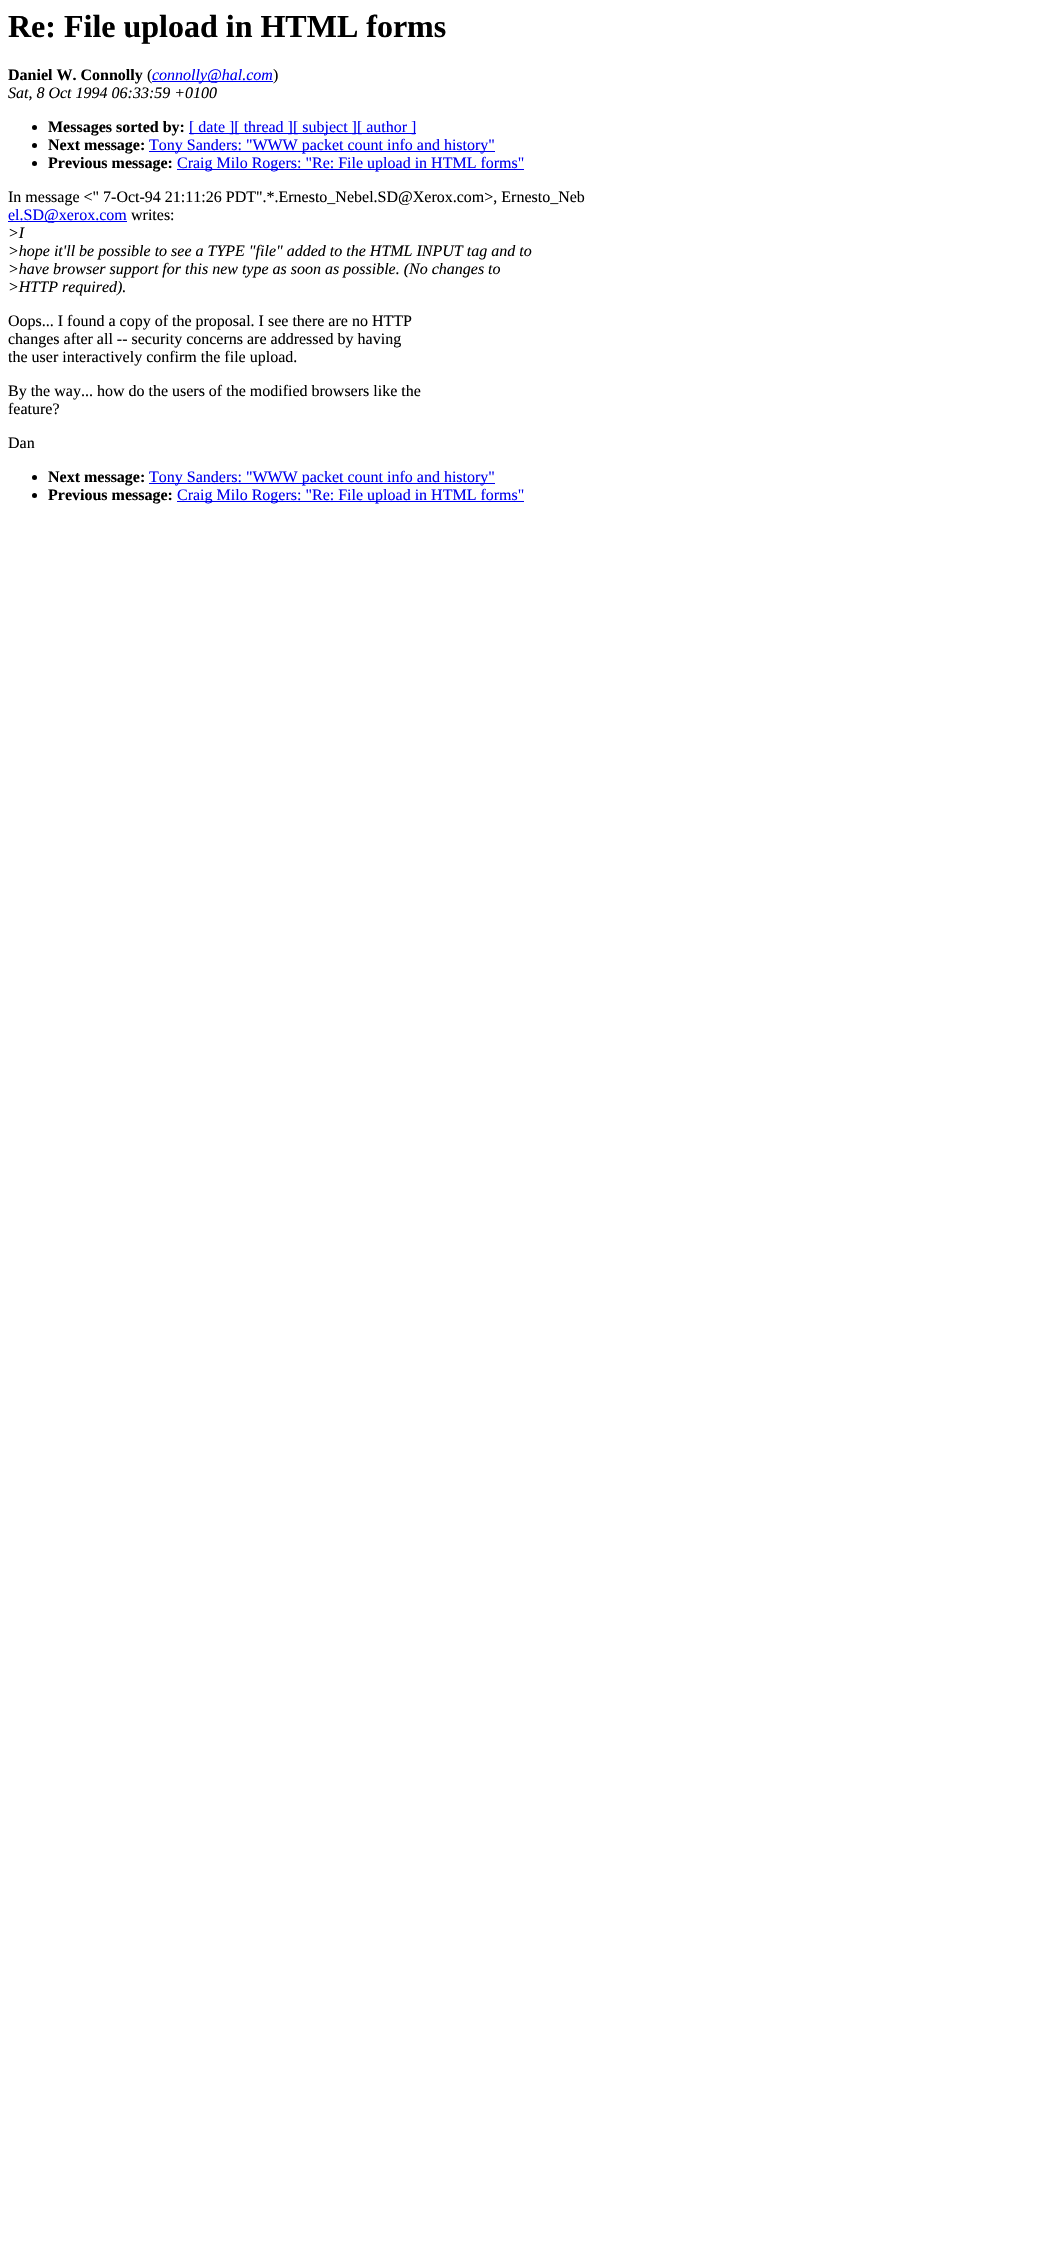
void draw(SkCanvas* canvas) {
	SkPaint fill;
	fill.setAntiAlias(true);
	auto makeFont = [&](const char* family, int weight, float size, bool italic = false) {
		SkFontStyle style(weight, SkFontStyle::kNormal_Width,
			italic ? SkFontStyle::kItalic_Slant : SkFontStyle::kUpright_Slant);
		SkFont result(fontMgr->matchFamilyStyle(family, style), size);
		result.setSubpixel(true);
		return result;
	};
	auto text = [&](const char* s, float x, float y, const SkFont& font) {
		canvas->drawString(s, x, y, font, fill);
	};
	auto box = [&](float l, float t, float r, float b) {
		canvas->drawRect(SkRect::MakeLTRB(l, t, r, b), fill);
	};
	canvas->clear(0xFFFFFFFF);
	fill.setColor(0xFF0000EE);
	box(152, 81, 273, 82);
	fill.setColor(0xFF000000);
	canvas->drawCircle(34.5f, 127.5f, 2.5f, fill);
	fill.setColor(0xFF0000EE);
	box(189, 133, 416, 134);
	fill.setColor(0xFF000000);
	canvas->drawCircle(34.5f, 145.5f, 2.5f, fill);
	fill.setColor(0xFF0000EE);
	box(149, 151, 495, 152);
	fill.setColor(0xFF000000);
	canvas->drawCircle(34.5f, 163.5f, 2.5f, fill);
	fill.setColor(0xFF0000EE);
	box(177, 169, 524, 170);
	box(8, 221, 127, 222);
	fill.setColor(0xFF000000);
	canvas->drawCircle(34.5f, 477.5f, 2.5f, fill);
	fill.setColor(0xFF0000EE);
	box(149, 483, 495, 484);
	fill.setColor(0xFF000000);
	canvas->drawCircle(34.5f, 495.5f, 2.5f, fill);
	fill.setColor(0xFF0000EE);
	box(177, 501, 524, 502);
	auto font1 = makeFont("Liberation Serif", 700, 32);
	fill.setColor(0xFF000000);
	text("Re: File upload in HTML forms", 8, 37, font1);
	auto font2 = makeFont("Liberation Serif", 700, 16);
	text("Daniel W. Connolly", 8, 80, font2);
	auto font3 = makeFont("Liberation Serif", 400, 16);
	text("(", 147, 80, font3);
	auto font4 = makeFont("Liberation Serif", 400, 16, true);
	fill.setColor(0xFF0000EE);
	text("connolly@hal.com", 152, 80, font4);
	fill.setColor(0xFF000000);
	text(")", 273, 80, font3);
	text("Sat, 8 Oct 1994 06:33:59 +0100", 8, 98, font4);
	text("Messages sorted by:", 48, 132, font2);
	fill.setColor(0xFF0000EE);
	text("[ date ][ thread ][ subject ][ author ]", 189, 132, font3);
	fill.setColor(0xFF000000);
	text("Next message:", 48, 150, font2);
	fill.setColor(0xFF0000EE);
	text("Tony Sanders: \"WWW packet count info and history\"", 149, 150, font3);
	fill.setColor(0xFF000000);
	text("Previous message:", 48, 168, font2);
	fill.setColor(0xFF0000EE);
	text("Craig Milo Rogers: \"Re: File upload in HTML forms\"", 177, 168, font3);
	fill.setColor(0xFF000000);
	text("In message <\" 7-Oct-94 21:11:26 PDT\".*.Ernesto_Nebel.SD@Xerox.com>, Ernesto_Neb", 8, 202, font3);
	fill.setColor(0xFF0000EE);
	text("el.SD@xerox.com", 8, 220, font3);
	fill.setColor(0xFF000000);
	text("writes:", 131, 220, font3);
	text(">I", 8, 238, font4);
	text(">hope it'll be possible to see a TYPE \"file\" added to the HTML INPUT tag and to", 8, 256, font4);
	text(">have browser support for this new type as soon as possible. (No changes to", 8, 274, font4);
	text(">HTTP required).", 8, 292, font4);
	text("Oops... I found a copy of the proposal. I see there are no HTTP", 8, 326, font3);
	text("changes after all -- security concerns are addressed by having", 8, 344, font3);
	text("the user interactively confirm the file upload.", 8, 362, font3);
	text("By the way... how do the users of the modified browsers like the", 8, 396, font3);
	text("feature?", 8, 414, font3);
	text("Dan", 8, 448, font3);
	text("Next message:", 48, 482, font2);
	fill.setColor(0xFF0000EE);
	text("Tony Sanders: \"WWW packet count info and history\"", 149, 482, font3);
	fill.setColor(0xFF000000);
	text("Previous message:", 48, 500, font2);
	fill.setColor(0xFF0000EE);
	text("Craig Milo Rogers: \"Re: File upload in HTML forms\"", 177, 500, font3);
}
